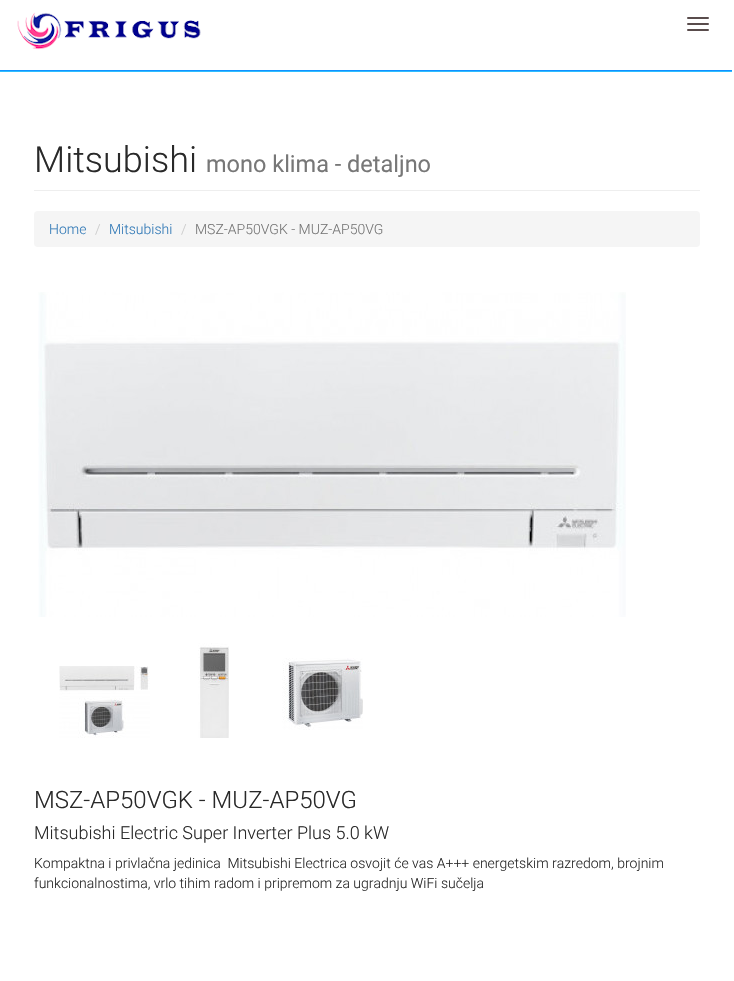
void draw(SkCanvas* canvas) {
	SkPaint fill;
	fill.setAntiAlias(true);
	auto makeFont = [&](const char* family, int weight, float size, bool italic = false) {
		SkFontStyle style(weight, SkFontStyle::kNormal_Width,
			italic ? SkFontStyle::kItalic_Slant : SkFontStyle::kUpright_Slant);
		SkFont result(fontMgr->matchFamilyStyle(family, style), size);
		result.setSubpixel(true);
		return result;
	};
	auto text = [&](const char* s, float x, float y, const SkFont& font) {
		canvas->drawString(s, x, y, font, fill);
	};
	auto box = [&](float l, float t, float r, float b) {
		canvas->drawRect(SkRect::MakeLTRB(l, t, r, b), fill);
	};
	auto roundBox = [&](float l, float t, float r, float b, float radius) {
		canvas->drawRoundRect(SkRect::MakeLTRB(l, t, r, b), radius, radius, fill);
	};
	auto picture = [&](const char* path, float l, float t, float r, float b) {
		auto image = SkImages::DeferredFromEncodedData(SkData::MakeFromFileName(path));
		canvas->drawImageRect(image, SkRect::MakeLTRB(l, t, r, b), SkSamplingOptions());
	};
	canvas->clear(0xFFFFFFFF);
	picture("image0.png", 17, 12, 201, 50);
	fill.setColor(0xFF594C4C);
	roundBox(687, 17, 709, 19, 1);
	roundBox(687, 23, 709, 25, 1);
	roundBox(687, 29, 709, 31, 1);
	picture("image1.png", 0, 70, 732, 72);
	fill.setColor(0xFFEEEEEE);
	box(34, 190, 700, 191);
	fill.setColor(0xFFF5F5F5);
	roundBox(34, 211, 700, 247, 4);
	picture("image2.png", 38, 292, 626, 617);
	picture("image3.png", 59, 666, 150, 738);
	picture("image4.png", 198, 643, 229, 738);
	picture("image5.png", 282, 658, 363, 730);
	auto font1 = makeFont("Roboto", 300, 36);
	fill.setColor(0xFF292929);
	text("Mitsubishi", 34, 172, font1);
	auto font2 = makeFont("Roboto", 400, 23.5f);
	fill.setColor(0xFF777777);
	text("mono klima - detaljno", 206, 172, font2);
	auto font3 = makeFont("Roboto", 300, 14);
	fill.setColor(0xFF337AB7);
	text("Home", 49, 234, font3);
	fill.setColor(0xFFCCCCCC);
	text("/", 95, 234, font3);
	fill.setColor(0xFF337AB7);
	text("Mitsubishi", 109, 234, font3);
	fill.setColor(0xFFCCCCCC);
	text("/", 181, 234, font3);
	fill.setColor(0xFF777777);
	text("MSZ-AP50VGK - MUZ-AP50VG", 195, 234, font3);
	auto font4 = makeFont("Roboto", 300, 24);
	fill.setColor(0xFF292929);
	text("MSZ-AP50VGK - MUZ-AP50VG", 34, 808, font4);
	auto font5 = makeFont("Roboto", 300, 18);
	text("Mitsubishi Electric Super Inverter Plus 5.0 kW", 34, 839, font5);
	text("Kompaktna i privlačna jedinica  Mitsubishi Electrica osvojit će vas A+++ energetskim razredom, brojnim", 34, 868, font3);
	text("funkcionalnostima, vrlo tihim radom i pripremom za ugradnju WiFi sučelja", 34, 888, font3);
}
